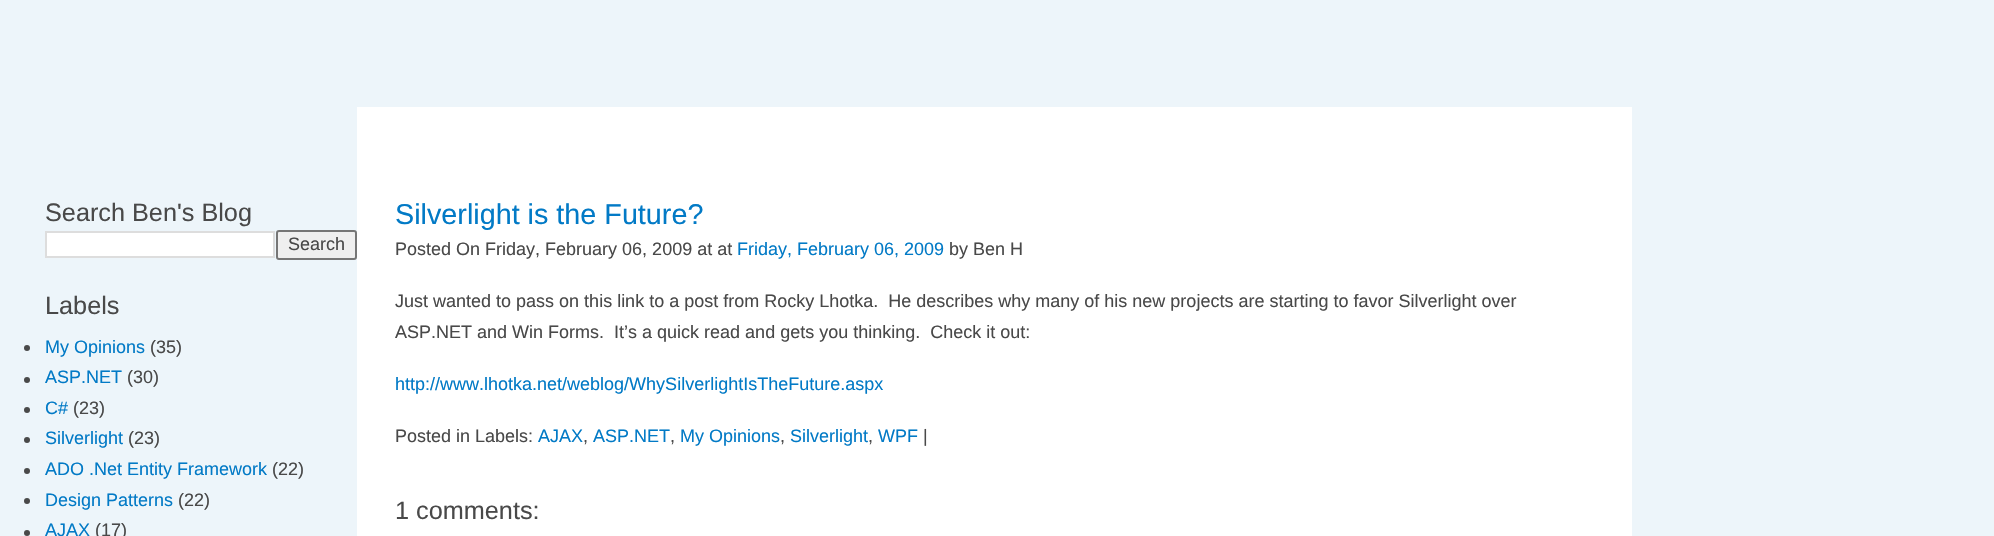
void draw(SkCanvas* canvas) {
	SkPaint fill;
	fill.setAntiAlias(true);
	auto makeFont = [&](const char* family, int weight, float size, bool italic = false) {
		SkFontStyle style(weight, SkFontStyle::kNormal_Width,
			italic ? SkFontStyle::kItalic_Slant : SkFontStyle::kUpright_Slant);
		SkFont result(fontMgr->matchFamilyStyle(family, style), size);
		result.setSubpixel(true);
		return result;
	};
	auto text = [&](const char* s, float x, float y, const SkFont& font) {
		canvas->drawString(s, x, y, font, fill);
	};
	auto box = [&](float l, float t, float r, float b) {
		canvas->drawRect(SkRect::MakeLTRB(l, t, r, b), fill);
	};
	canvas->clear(0xFFEDF5FA);
	fill.setColor(0xFFFFFFFF);
	canvas->drawRect(SkRect::MakeLTRB(46, 232, 274, 257), fill);
	fill.setStyle(SkPaint::kStroke_Style);
	fill.setStrokeWidth(2);
	fill.setColor(0xFFDDDDDD);
	canvas->drawRect(SkRect::MakeLTRB(46, 232, 274, 257), fill);
	fill.setStyle(SkPaint::kFill_Style);
	fill.setColor(0xFFEFEFEF);
	canvas->drawRoundRect(SkRect::MakeLTRB(277, 231, 356, 259), 2, 2, fill);
	fill.setStyle(SkPaint::kStroke_Style);
	fill.setColor(0xFF767676);
	canvas->drawRoundRect(SkRect::MakeLTRB(277, 231, 356, 259), 2, 2, fill);
	fill.setStyle(SkPaint::kFill_Style);
	fill.setColor(0xFF494949);
	canvas->drawCircle(27, 348, 3, fill);
	canvas->drawCircle(27, 380, 3, fill);
	canvas->drawCircle(27, 410, 3, fill);
	canvas->drawCircle(27, 440, 3, fill);
	canvas->drawCircle(27, 471, 3, fill);
	canvas->drawCircle(27, 501, 3, fill);
	canvas->drawCircle(27, 533, 3, fill);
	fill.setColor(0xFFFFFFFF);
	box(357, 107, 1632, 536);
	auto font1 = makeFont("Liberation Sans", 400, 25.25f);
	fill.setColor(0xFF494949);
	text("Search Ben's Blog", 45, 221, font1);
	auto font2 = makeFont("Liberation Sans", 400, 18);
	text("Search", 288, 250, font2);
	text("Labels", 45, 314, font1);
	fill.setColor(0xFF027AC6);
	text("My Opinions", 45, 353, font2);
	fill.setColor(0xFF494949);
	text("(35)", 150, 353, font2);
	fill.setColor(0xFF027AC6);
	text("ASP.NET", 45, 383, font2);
	fill.setColor(0xFF494949);
	text("(30)", 127, 383, font2);
	fill.setColor(0xFF027AC6);
	text("C#", 45, 414, font2);
	fill.setColor(0xFF494949);
	text("(23)", 73, 414, font2);
	fill.setColor(0xFF027AC6);
	text("Silverlight", 45, 444, font2);
	fill.setColor(0xFF494949);
	text("(23)", 128, 444, font2);
	fill.setColor(0xFF027AC6);
	text("ADO .Net Entity Framework", 45, 475, font2);
	fill.setColor(0xFF494949);
	text("(22)", 272, 475, font2);
	fill.setColor(0xFF027AC6);
	text("Design Patterns", 45, 506, font2);
	fill.setColor(0xFF494949);
	text("(22)", 178, 506, font2);
	fill.setColor(0xFF027AC6);
	text("AJAX", 45, 536, font2);
	fill.setColor(0xFF494949);
	text("(17)", 95, 536, font2);
	auto font3 = makeFont("Liberation Sans", 400, 28.75f);
	fill.setColor(0xFF027AC6);
	text("Silverlight is the Future?", 395, 224, font3);
	fill.setColor(0xFF494949);
	text("Posted On Friday, February 06, 2009 at at", 395, 255, font2);
	fill.setColor(0xFF027AC6);
	text("Friday, February 06, 2009", 737, 255, font2);
	fill.setColor(0xFF494949);
	text("by Ben H", 949, 255, font2);
	text("Just wanted to pass on this link to a post from Rocky Lhotka.  He describes why many of his new projects are starting to favor Silverlight over", 395, 307, font2);
	text("ASP.NET and Win Forms.  It’s a quick read and gets you thinking.  Check it out:", 395, 338, font2);
	fill.setColor(0xFF027AC6);
	text("http://www.lhotka.net/weblog/WhySilverlightIsTheFuture.aspx", 395, 390, font2);
	fill.setColor(0xFF494949);
	text("Posted in Labels:", 395, 442, font2);
	fill.setColor(0xFF027AC6);
	text("AJAX", 538, 442, font2);
	text("ASP.NET", 593, 442, font2);
	text("My Opinions", 680, 442, font2);
	text("Silverlight", 790, 442, font2);
	text("WPF", 878, 442, font2);
	fill.setColor(0xFF494949);
	text("|", 923, 442, font2);
	text(",", 583, 442, font2);
	text(",", 670, 442, font2);
	text(",", 780, 442, font2);
	text(",", 868, 442, font2);
	text("1 comments:", 395, 519, font1);
}
